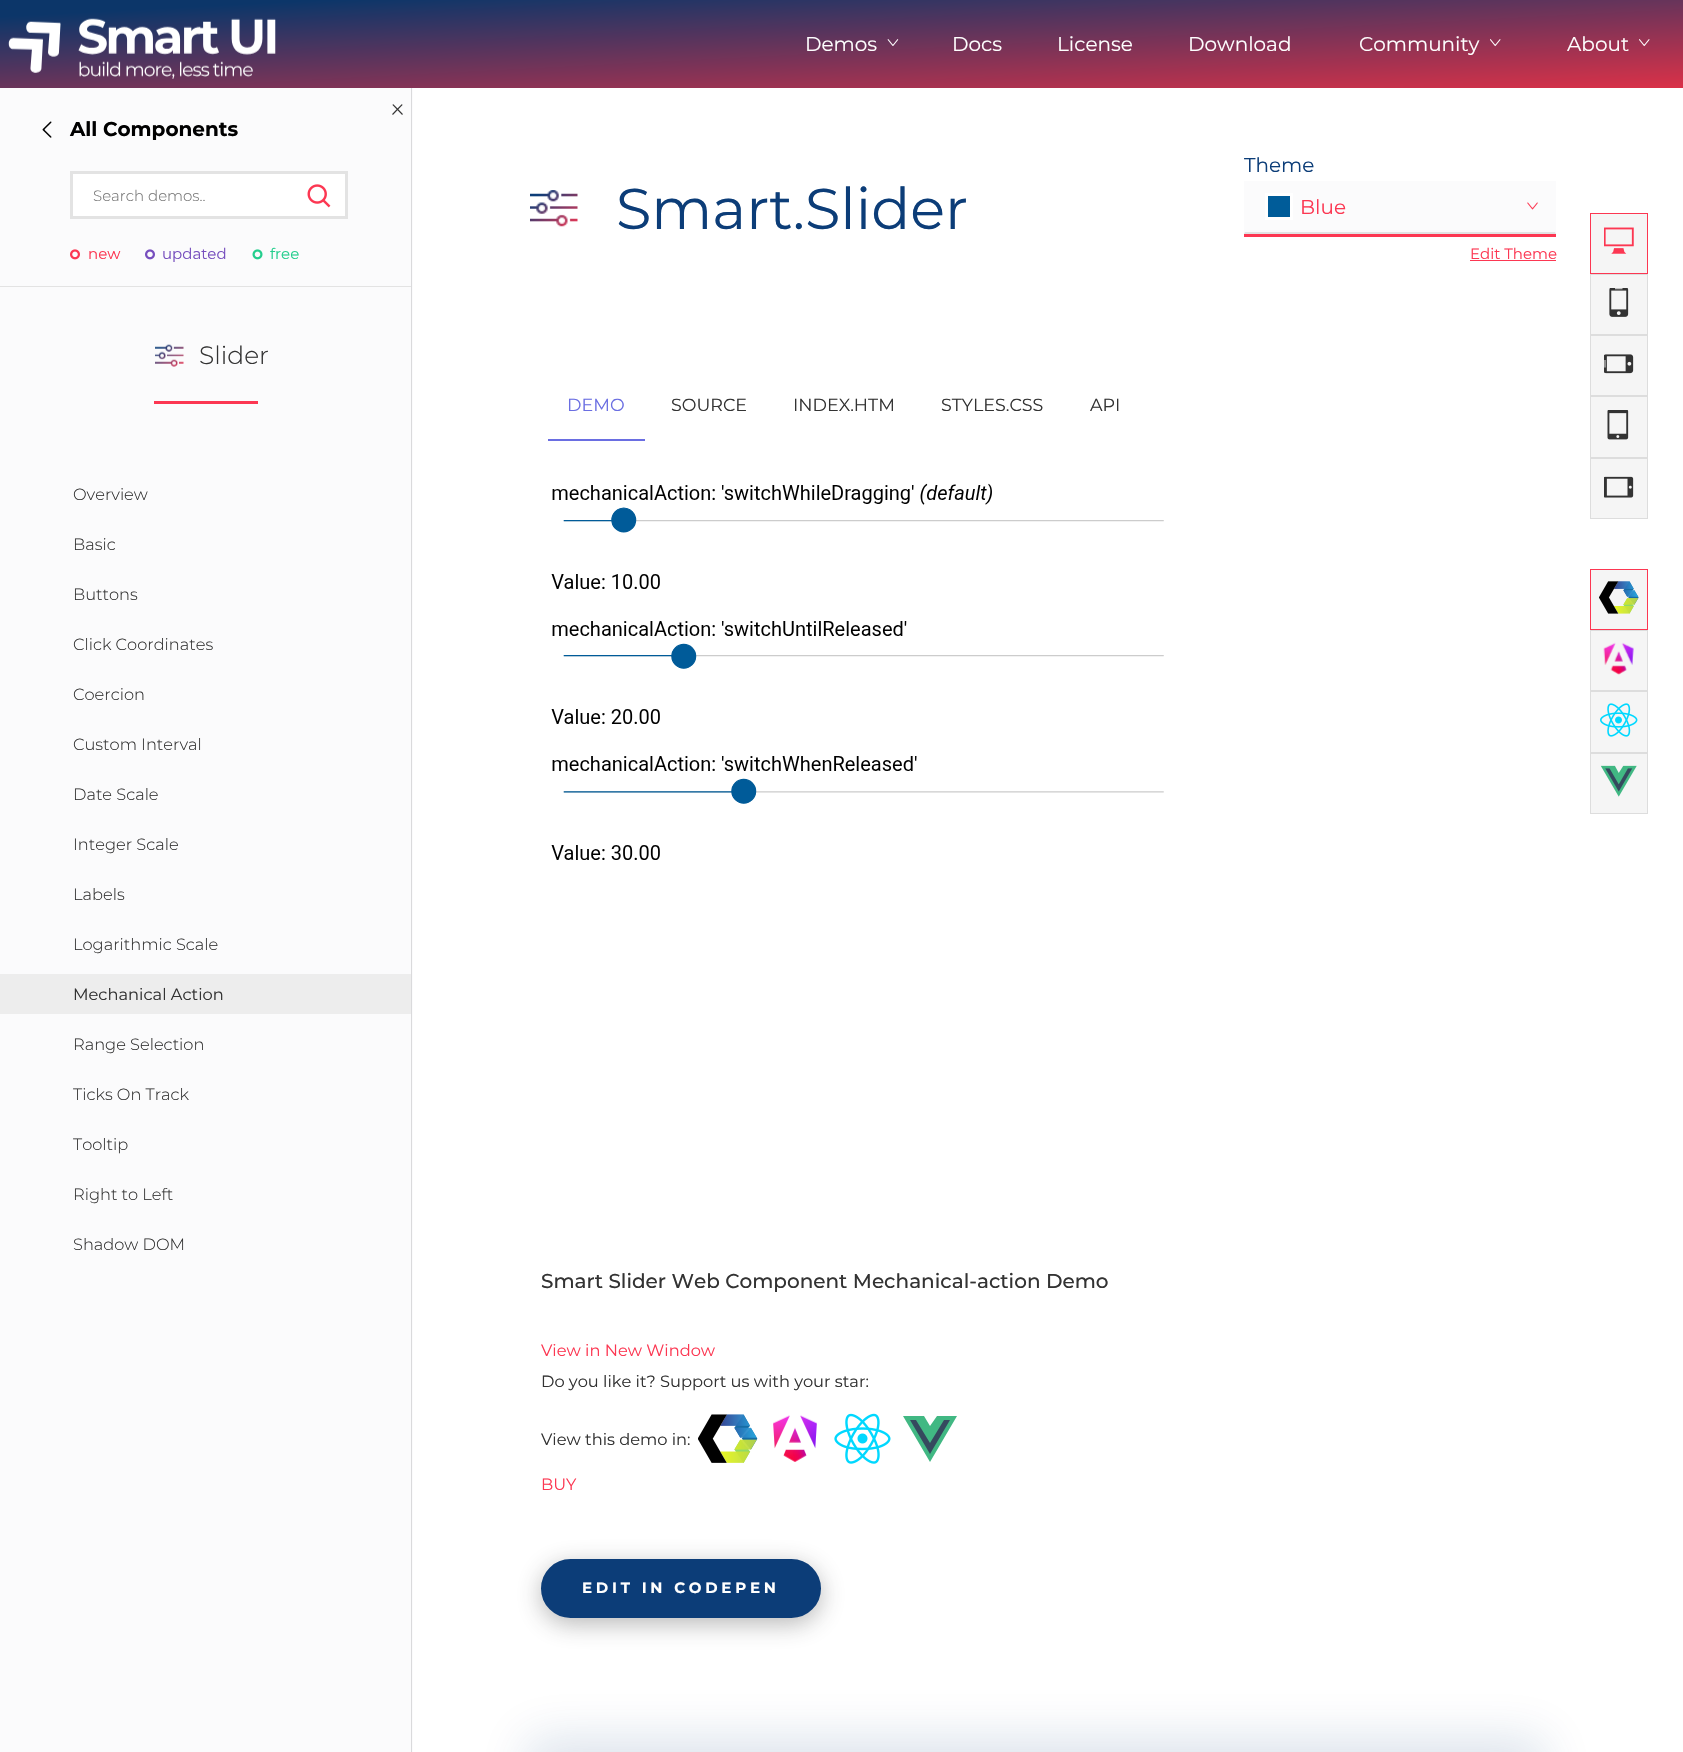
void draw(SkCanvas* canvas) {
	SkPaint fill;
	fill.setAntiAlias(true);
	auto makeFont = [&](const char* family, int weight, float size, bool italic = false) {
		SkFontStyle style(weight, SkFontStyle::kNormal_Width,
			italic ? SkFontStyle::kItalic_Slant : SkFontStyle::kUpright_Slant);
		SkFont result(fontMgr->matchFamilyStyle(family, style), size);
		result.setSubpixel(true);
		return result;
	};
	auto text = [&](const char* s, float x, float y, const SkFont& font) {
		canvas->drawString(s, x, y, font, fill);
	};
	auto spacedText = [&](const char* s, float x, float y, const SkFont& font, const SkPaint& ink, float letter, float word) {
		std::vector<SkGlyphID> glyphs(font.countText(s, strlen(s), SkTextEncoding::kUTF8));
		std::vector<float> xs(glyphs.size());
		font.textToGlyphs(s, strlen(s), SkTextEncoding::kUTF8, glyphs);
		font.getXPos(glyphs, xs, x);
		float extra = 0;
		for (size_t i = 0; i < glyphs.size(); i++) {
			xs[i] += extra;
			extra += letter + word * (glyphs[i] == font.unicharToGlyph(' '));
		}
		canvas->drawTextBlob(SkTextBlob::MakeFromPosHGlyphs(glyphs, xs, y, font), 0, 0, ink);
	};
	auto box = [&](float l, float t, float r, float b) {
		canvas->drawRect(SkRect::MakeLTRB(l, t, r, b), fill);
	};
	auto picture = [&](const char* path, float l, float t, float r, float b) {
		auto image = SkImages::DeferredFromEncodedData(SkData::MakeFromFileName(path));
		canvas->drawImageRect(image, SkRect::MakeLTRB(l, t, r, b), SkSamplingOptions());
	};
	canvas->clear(0xFFFFFFFF);
	{
		const SkColor colors[] = {0xFF0C3669, 0xFFDA3148};
		const float stops[] = {0.1f, 1};
		const SkPoint ends[] = {{837, -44}, {846, 131}};
		fill.setShader(SkGradientShader::MakeLinear(ends, colors, stops, 2, SkTileMode::kClamp));
		fill.setAlpha(255);
	}
	box(0, 0, 1683, 88);
	picture("image0.png", 8, 18, 276, 79);
	picture("image1.png", 887, 39, 899, 46);
	picture("image2.png", 1490, 39, 1501, 47);
	picture("image3.png", 1639, 39, 1650, 47);
	fill.setShader(nullptr);
	fill.setColor(0xFFFBFBFC);
	box(0, 88, 413, 1752);
	picture("image4.png", 392, 104, 403, 115);
	fill.setColor(0xFFDADADC);
	box(411, 88, 412, 1752);
	fill.setColor(0xFFE3E3E3);
	box(0, 286, 411, 287);
	picture("image5.png", 42, 121, 52, 138);
	fill.setColor(0xFFFFFFFF);
	canvas->drawRect(SkRect::MakeLTRB(71.5f, 172.5f, 346.5f, 217.5f), fill);
	fill.setStyle(SkPaint::kStroke_Style);
	fill.setStrokeWidth(3);
	fill.setColor(0xFFE3E3E3);
	canvas->drawRect(SkRect::MakeLTRB(71.5f, 172.5f, 346.5f, 217.5f), fill);
	picture("image6.png", 307, 184, 331, 208);
	picture("image7.png", 70, 249, 80, 260);
	picture("image8.png", 145, 249, 155, 260);
	picture("image9.png", 252, 249, 263, 260);
	picture("image10.png", 155, 344, 184, 367);
	fill.setStyle(SkPaint::kFill_Style);
	fill.setColor(0xFFFC3752);
	box(154, 401, 258, 404);
	fill.setColor(0xFFEDEDED);
	box(0, 974, 411, 1014);
	picture("image11.png", 530, 190, 578, 227);
	fill.setColor(0xFFFC3752);
	box(1244, 234, 1556, 237);
	fill.setColor(0xFFFBFBFC);
	box(1244, 181, 1556, 234);
	fill.setColor(0xFFE2E2E3);
	canvas->drawPath(SkPathBuilder().moveTo(1556, 234).lineTo(1244, 234).lineTo(1245, 232).lineTo(1555, 232).close().detach(), fill);
	fill.setColor(0xFF005C99);
	canvas->drawRect(SkRect::MakeLTRB(1266.5f, 194.5f, 1291.5f, 218.5f), fill);
	fill.setStyle(SkPaint::kStroke_Style);
	fill.setColor(0xFFFFFFFF);
	canvas->drawRect(SkRect::MakeLTRB(1266.5f, 194.5f, 1291.5f, 218.5f), fill);
	picture("image12.png", 1527, 202, 1538, 210);
	fill.setStyle(SkPaint::kFill_Style);
	fill.setColor(0xFFFC3752);
	box(1470, 260, 1556, 261);
	fill.setColor(0xFF6A6EE2);
	box(548, 439, 645, 441);
	picture("image13.png", 551, 483, 1164, 860);
	fill.setColor(0xFFF5F5F5);
	canvas->drawRect(SkRect::MakeLTRB(1590.5f, 213.5f, 1647.5f, 273.5f), fill);
	fill.setStyle(SkPaint::kStroke_Style);
	fill.setStrokeWidth(1);
	fill.setColor(0xFFFC3752);
	canvas->drawRect(SkRect::MakeLTRB(1590.5f, 213.5f, 1647.5f, 273.5f), fill);
	picture("image14.png", 1604, 227, 1634, 254);
	fill.setStyle(SkPaint::kFill_Style);
	fill.setColor(0xFFF5F5F5);
	canvas->drawRect(SkRect::MakeLTRB(1590.5f, 274.5f, 1647.5f, 334.5f), fill);
	fill.setStyle(SkPaint::kStroke_Style);
	fill.setColor(0xFFDDDDDD);
	canvas->drawRect(SkRect::MakeLTRB(1590.5f, 274.5f, 1647.5f, 334.5f), fill);
	picture("image15.png", 1609, 288, 1629, 317);
	fill.setStyle(SkPaint::kFill_Style);
	fill.setColor(0xFFF5F5F5);
	canvas->drawRect(SkRect::MakeLTRB(1590.5f, 335.5f, 1647.5f, 395.5f), fill);
	fill.setStyle(SkPaint::kStroke_Style);
	fill.setColor(0xFFDDDDDD);
	canvas->drawRect(SkRect::MakeLTRB(1590.5f, 335.5f, 1647.5f, 395.5f), fill);
	picture("image16.png", 1604, 354, 1634, 374);
	fill.setStyle(SkPaint::kFill_Style);
	fill.setColor(0xFFF5F5F5);
	canvas->drawRect(SkRect::MakeLTRB(1590.5f, 396.5f, 1647.5f, 457.5f), fill);
	fill.setStyle(SkPaint::kStroke_Style);
	fill.setColor(0xFFDDDDDD);
	canvas->drawRect(SkRect::MakeLTRB(1590.5f, 396.5f, 1647.5f, 457.5f), fill);
	picture("image17.png", 1607, 410, 1629, 440);
	fill.setStyle(SkPaint::kFill_Style);
	fill.setColor(0xFFF5F5F5);
	canvas->drawRect(SkRect::MakeLTRB(1590.5f, 458.5f, 1647.5f, 518.5f), fill);
	fill.setStyle(SkPaint::kStroke_Style);
	fill.setColor(0xFFDDDDDD);
	canvas->drawRect(SkRect::MakeLTRB(1590.5f, 458.5f, 1647.5f, 518.5f), fill);
	picture("image18.png", 1604, 476, 1634, 498);
	fill.setStyle(SkPaint::kFill_Style);
	fill.setColor(0xFFF5F5F5);
	canvas->drawRect(SkRect::MakeLTRB(1590.5f, 569.5f, 1647.5f, 629.5f), fill);
	fill.setStyle(SkPaint::kStroke_Style);
	fill.setColor(0xFFFC3752);
	canvas->drawRect(SkRect::MakeLTRB(1590.5f, 569.5f, 1647.5f, 629.5f), fill);
	picture("image19.png", 1599, 581, 1639, 614);
	fill.setStyle(SkPaint::kFill_Style);
	fill.setColor(0xFFF5F5F5);
	canvas->drawRect(SkRect::MakeLTRB(1590.5f, 630.5f, 1647.5f, 690.5f), fill);
	fill.setStyle(SkPaint::kStroke_Style);
	fill.setColor(0xFFDDDDDD);
	canvas->drawRect(SkRect::MakeLTRB(1590.5f, 630.5f, 1647.5f, 690.5f), fill);
	picture("image20.png", 1603, 642, 1634, 675);
	fill.setStyle(SkPaint::kFill_Style);
	fill.setColor(0xFFF5F5F5);
	canvas->drawRect(SkRect::MakeLTRB(1590.5f, 691.5f, 1647.5f, 752.5f), fill);
	fill.setStyle(SkPaint::kStroke_Style);
	fill.setColor(0xFFDDDDDD);
	canvas->drawRect(SkRect::MakeLTRB(1590.5f, 691.5f, 1647.5f, 752.5f), fill);
	picture("image21.png", 1600, 703, 1638, 737);
	fill.setStyle(SkPaint::kFill_Style);
	fill.setColor(0xFFF5F5F5);
	canvas->drawRect(SkRect::MakeLTRB(1590.5f, 753.5f, 1647.5f, 813.5f), fill);
	fill.setStyle(SkPaint::kStroke_Style);
	fill.setColor(0xFFDDDDDD);
	canvas->drawRect(SkRect::MakeLTRB(1590.5f, 753.5f, 1647.5f, 813.5f), fill);
	picture("image22.png", 1600, 765, 1637, 797);
	picture("image23.png", 698, 1414, 758, 1463);
	picture("image24.png", 773, 1415, 817, 1462);
	picture("image25.png", 834, 1413, 891, 1464);
	fill.setStyle(SkPaint::kFill_Style);
	fill.setColor(0xFF41B883);
	canvas->drawPath(SkPathBuilder().moveTo(946, 1416).lineTo(937, 1416).lineTo(930, 1426).lineTo(924, 1416).lineTo(903, 1416).lineTo(930, 1462).lineTo(957, 1416).close().detach(), fill);
	fill.setColor(0xFF35495E);
	canvas->drawPath(SkPathBuilder().moveTo(910, 1420).lineTo(916, 1420).lineTo(930, 1443).lineTo(944, 1420).lineTo(950, 1420).lineTo(930, 1454).close().detach(), fill);
	fill.setColor(0x59333333);
	fill.setMaskFilter(SkMaskFilter::MakeBlur(kNormal_SkBlurStyle, 12.5f));
	canvas->drawRoundRect(SkRect::MakeLTRB(541, 1565, 821, 1624), 29.5f, 29.5f, fill);
	fill.setMaskFilter(nullptr);
	fill.setColor(0xFF0C3D78);
	canvas->drawRoundRect(SkRect::MakeLTRB(542.5f, 1560.5f, 819.5f, 1616.5f), 28, 28, fill);
	fill.setStyle(SkPaint::kStroke_Style);
	fill.setStrokeWidth(3);
	canvas->drawRoundRect(SkRect::MakeLTRB(542.5f, 1560.5f, 819.5f, 1616.5f), 28, 28, fill);
	fill.setStyle(SkPaint::kFill_Style);
	fill.setColor(0x260C3D78);
	fill.setMaskFilter(SkMaskFilter::MakeBlur(kNormal_SkBlurStyle, 25));
	canvas->drawRect(SkRect::MakeLTRB(528, 1739, 1544, 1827), fill);
	fill.setMaskFilter(nullptr);
	auto font1 = makeFont("Montserrat", 400, 20);
	fill.setColor(0xFFFFFFFF);
	text("Demos", 805, 51, font1);
	text("Docs", 952, 51, font1);
	text("License", 1057, 51, font1);
	text("Download", 1188, 51, font1);
	text("Community", 1359, 51, font1);
	text("About", 1567, 51, font1);
	auto font2 = makeFont("Montserrat", 700, 20);
	fill.setColor(0xFF000000);
	text("All Components", 70, 136, font2);
	auto font3 = makeFont("Montserrat", 300, 15);
	fill.setColor(0xFF757575);
	text("Search demos..", 93, 201, font3);
	auto font4 = makeFont("Montserrat", 400, 15);
	fill.setColor(0xFFFC3752);
	text("new", 88, 259, font4);
	fill.setColor(0xFF764EBE);
	text("updated", 162, 259, font4);
	fill.setColor(0xFF24CE8D);
	text("free", 270, 259, font4);
	auto font5 = makeFont("Montserrat", 300, 25);
	fill.setColor(0xFF333333);
	text("Slider", 199, 364, font5);
	auto font6 = makeFont("Montserrat", 300, 16.25f);
	text("Overview", 73, 500, font6);
	text("Basic", 73, 550, font6);
	text("Buttons", 73, 600, font6);
	text("Click Coordinates", 73, 650, font6);
	text("Coercion", 73, 700, font6);
	text("Custom Interval", 73, 750, font6);
	text("Date Scale", 73, 800, font6);
	text("Integer Scale", 73, 850, font6);
	text("Labels", 73, 900, font6);
	text("Logarithmic Scale", 73, 950, font6);
	auto font7 = makeFont("Montserrat", 400, 16.25f);
	text("Mechanical Action", 73, 1000, font7);
	text("Range Selection", 73, 1050, font6);
	text("Ticks On Track", 73, 1100, font6);
	text("Tooltip", 73, 1150, font6);
	text("Right to Left", 73, 1200, font6);
	text("Shadow DOM", 73, 1250, font6);
	auto font8 = makeFont("Montserrat", 400, 57.5f);
	fill.setColor(0xFF0C3D78);
	text("Smart.Slider", 616, 229, font8);
	text("Theme", 1244, 172, font1);
	fill.setColor(0xFFFC3752);
	text("Blue", 1300, 214, font1);
	text("Edit Theme", 1470, 259, font4);
	auto font9 = makeFont("Montserrat", 400, 17.5f);
	fill.setColor(0xFF6A6EE2);
	text("DEMO", 567, 411, font9);
	fill.setColor(0xFF333333);
	text("SOURCE", 671, 411, font9);
	text("INDEX.HTM", 793, 411, font9);
	text("STYLES.CSS", 941, 411, font9);
	text("API", 1090, 411, font9);
	auto font10 = makeFont("Montserrat", 500, 20);
	text("Smart Slider Web Component Mechanical-action Demo", 541, 1288, font10);
	fill.setColor(0xFFFC3752);
	text("View in New Window", 541, 1356, font7);
	fill.setColor(0xFF333333);
	text("Do you like it? Support us with your star:", 541, 1387, font7);
	text("View this demo in:", 541, 1445, font7);
	fill.setColor(0xFFFC3752);
	text("BUY", 541, 1490, font7);
	auto font11 = makeFont("Montserrat", 700, 15);
	fill.setColor(0xFFFFFFFF);
	spacedText("EDIT IN CODEPEN", 582, 1593, font11, fill, 3.75f, 0);
}
